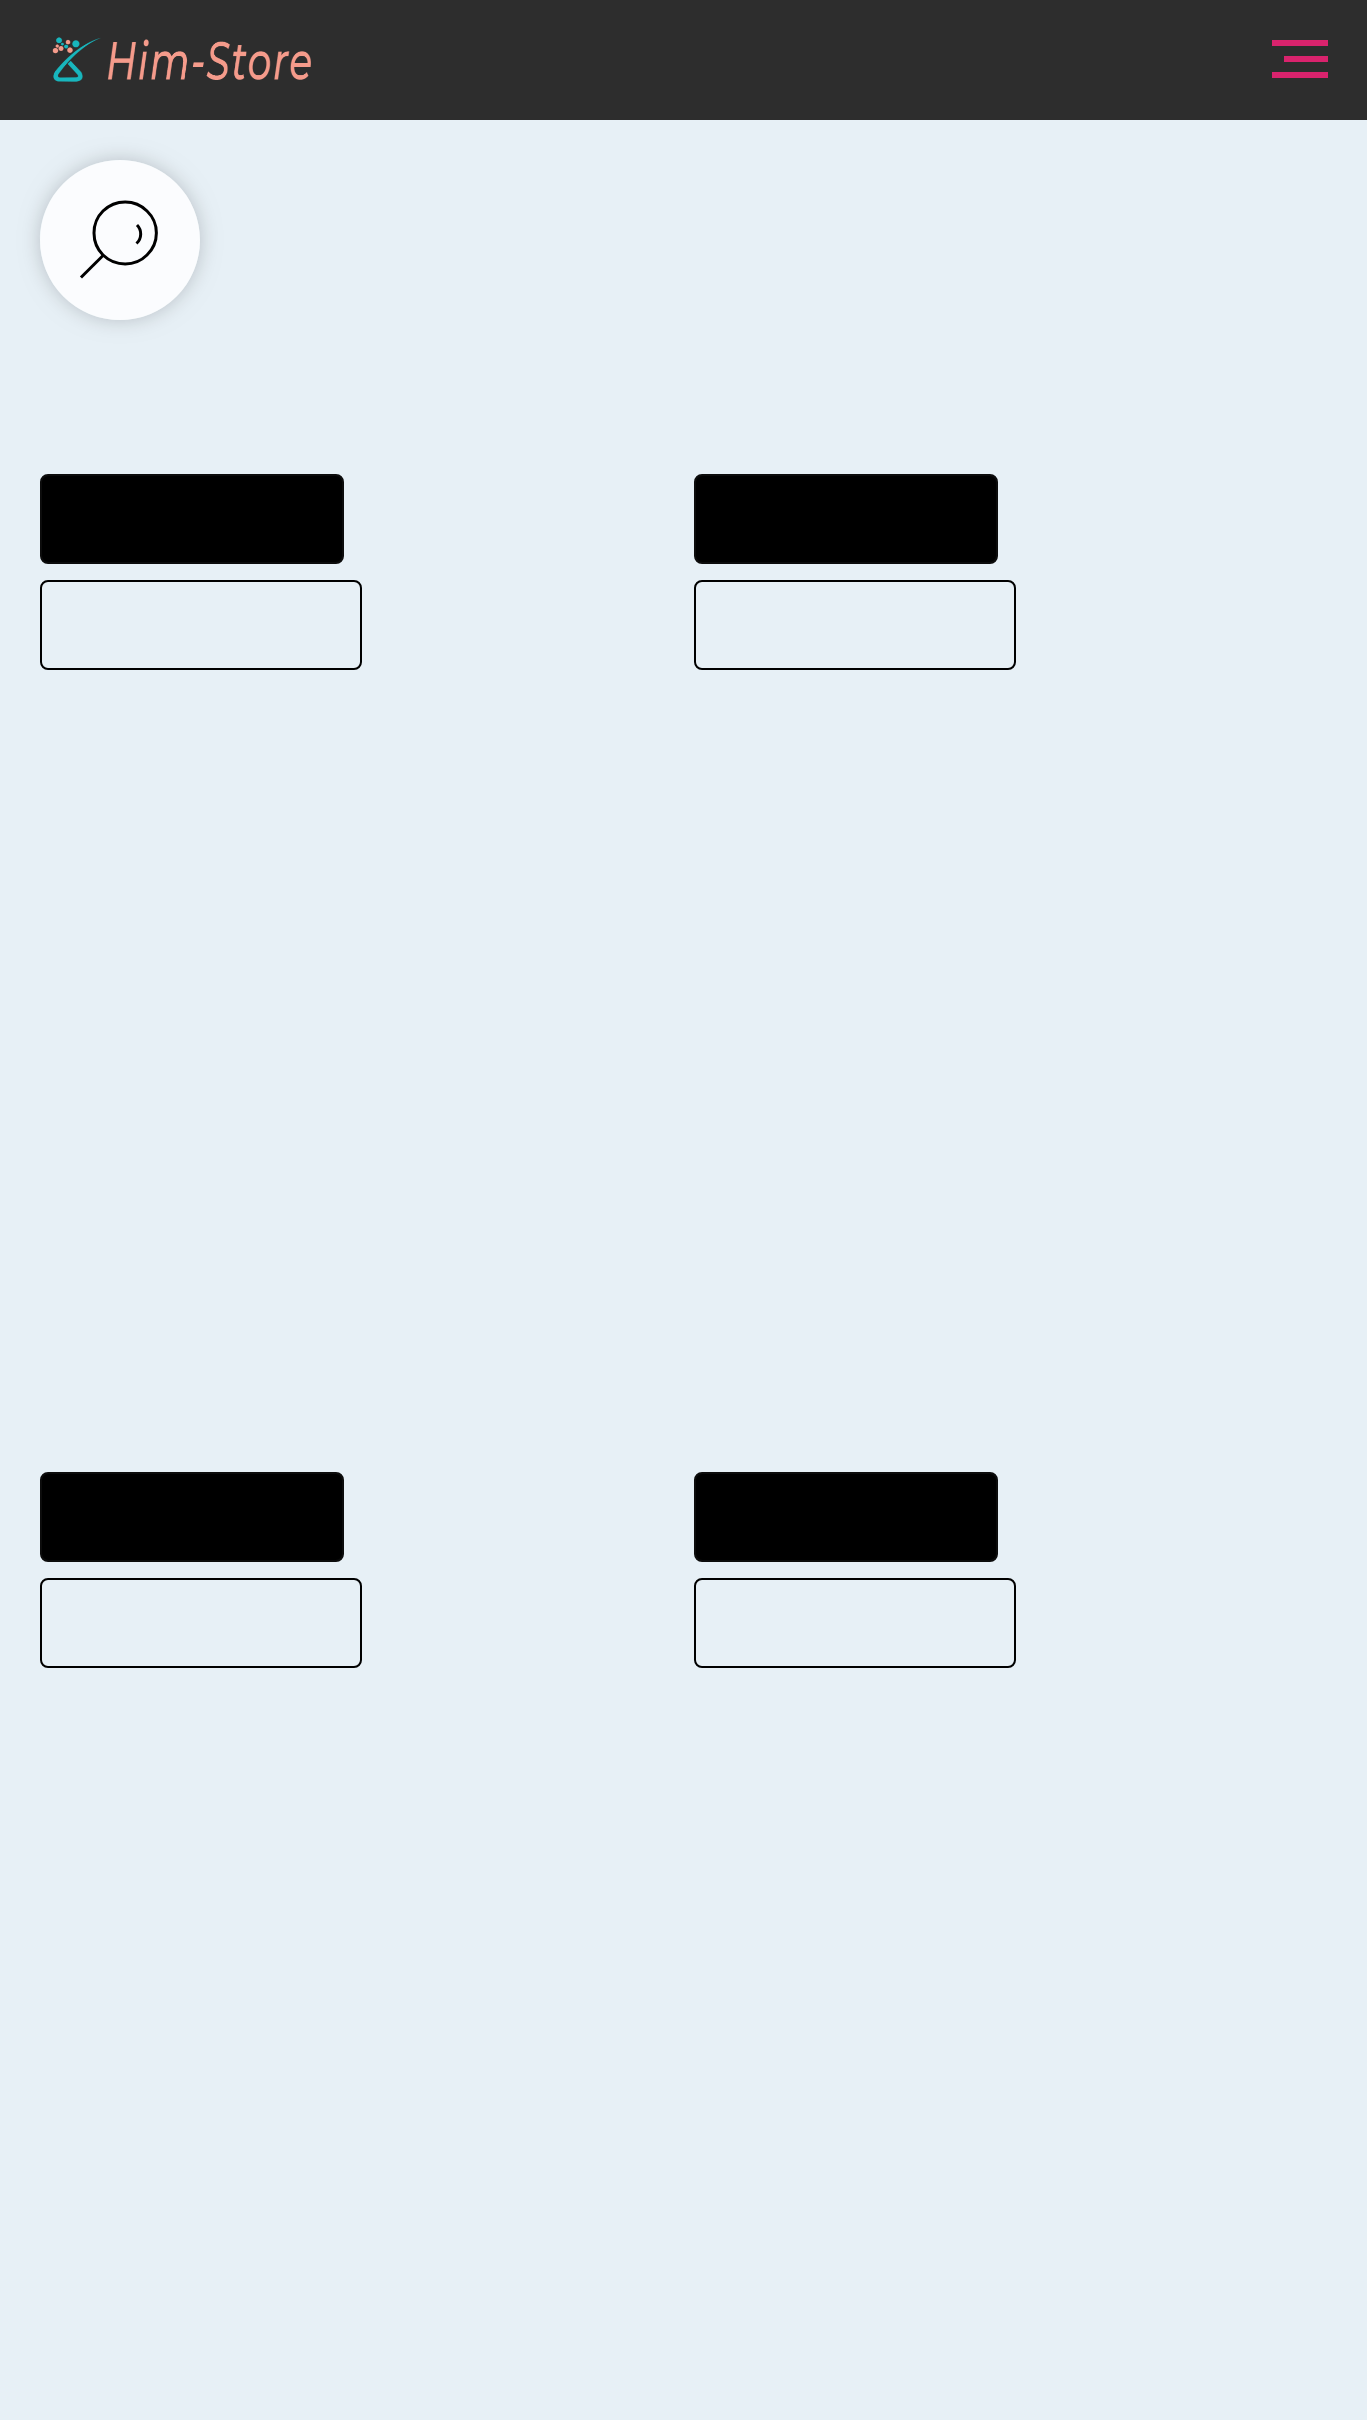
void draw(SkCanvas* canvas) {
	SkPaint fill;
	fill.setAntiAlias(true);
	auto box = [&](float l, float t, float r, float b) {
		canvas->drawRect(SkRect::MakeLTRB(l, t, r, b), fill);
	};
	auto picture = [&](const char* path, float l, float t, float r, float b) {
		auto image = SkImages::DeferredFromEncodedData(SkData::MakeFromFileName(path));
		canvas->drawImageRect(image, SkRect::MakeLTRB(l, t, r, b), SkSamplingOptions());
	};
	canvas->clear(0xFFE7F0F6);
	fill.setColor(0xFF2D2D2D);
	box(0, 0, 1367, 120);
	picture("image0.png", 52, 37, 311, 82);
	fill.setColor(0xFFD9236D);
	box(1272, 40, 1328, 46);
	box(1284, 56, 1328, 62);
	box(1272, 72, 1328, 78);
	canvas->save();
	canvas->clipPath(SkPathBuilder(SkPathFillType::kEvenOdd).moveTo(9, 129).lineTo(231, 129).lineTo(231, 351).lineTo(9, 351).close().moveTo(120, 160).cubicTo(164, 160, 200, 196, 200, 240).cubicTo(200, 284, 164, 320, 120, 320).cubicTo(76, 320, 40, 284, 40, 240).cubicTo(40, 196, 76, 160, 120, 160).close().detach(), true);
	fill.setColor(0x33000000);
	fill.setMaskFilter(SkMaskFilter::MakeBlur(kNormal_SkBlurStyle, 10));
	canvas->drawRoundRect(SkRect::MakeLTRB(40, 160, 200, 320), 80, 80, fill);
	fill.setMaskFilter(nullptr);
	canvas->restore();
	fill.setColor(0xCCFFFFFF);
	canvas->drawCircle(120, 240, 80, fill);
	fill.setStyle(SkPaint::kStroke_Style);
	fill.setStrokeWidth(3);
	fill.setStrokeCap(SkPaint::kSquare_Cap);
	fill.setColor(0xFF000000);
	canvas->drawPath(SkPathBuilder().moveTo(102, 256.5f).lineTo(82, 276.5f).detach(), fill);
	fill.setStrokeCap(SkPaint::kButt_Cap);
	canvas->drawPath(SkPathBuilder().moveTo(147, 211).cubicTo(159.5f, 223, 159.5f, 243, 147, 255).cubicTo(135, 267, 115.5f, 267, 103, 255).cubicTo(91, 243, 91, 223, 103, 211).cubicTo(115.5f, 199, 135, 199, 147, 211).close().detach(), fill);
	canvas->drawPath(SkPathBuilder().moveTo(137, 225).cubicTo(142, 230, 142, 238.5f, 136.5f, 243.5f).detach(), fill);
	fill.setStyle(SkPaint::kFill_Style);
	canvas->drawRoundRect(SkRect::MakeLTRB(41, 475, 343, 563), 7, 7, fill);
	fill.setStyle(SkPaint::kStroke_Style);
	fill.setStrokeWidth(2);
	fill.setColor(0xFF0C0C0C);
	canvas->drawRoundRect(SkRect::MakeLTRB(41, 475, 343, 563), 7, 7, fill);
	fill.setColor(0xFF000000);
	canvas->drawRoundRect(SkRect::MakeLTRB(41, 581, 361, 669), 7, 7, fill);
	fill.setStyle(SkPaint::kFill_Style);
	canvas->drawRoundRect(SkRect::MakeLTRB(695, 475, 997, 563), 7, 7, fill);
	fill.setStyle(SkPaint::kStroke_Style);
	fill.setColor(0xFF0C0C0C);
	canvas->drawRoundRect(SkRect::MakeLTRB(695, 475, 997, 563), 7, 7, fill);
	fill.setColor(0xFF000000);
	canvas->drawRoundRect(SkRect::MakeLTRB(695, 581, 1015, 669), 7, 7, fill);
	fill.setStyle(SkPaint::kFill_Style);
	canvas->drawRoundRect(SkRect::MakeLTRB(41, 1473, 343, 1561), 7, 7, fill);
	fill.setStyle(SkPaint::kStroke_Style);
	fill.setColor(0xFF0C0C0C);
	canvas->drawRoundRect(SkRect::MakeLTRB(41, 1473, 343, 1561), 7, 7, fill);
	fill.setColor(0xFF000000);
	canvas->drawRoundRect(SkRect::MakeLTRB(41, 1579, 361, 1667), 7, 7, fill);
	fill.setStyle(SkPaint::kFill_Style);
	canvas->drawRoundRect(SkRect::MakeLTRB(695, 1473, 997, 1561), 7, 7, fill);
	fill.setStyle(SkPaint::kStroke_Style);
	fill.setColor(0xFF0C0C0C);
	canvas->drawRoundRect(SkRect::MakeLTRB(695, 1473, 997, 1561), 7, 7, fill);
	fill.setColor(0xFF000000);
	canvas->drawRoundRect(SkRect::MakeLTRB(695, 1579, 1015, 1667), 7, 7, fill);
}
